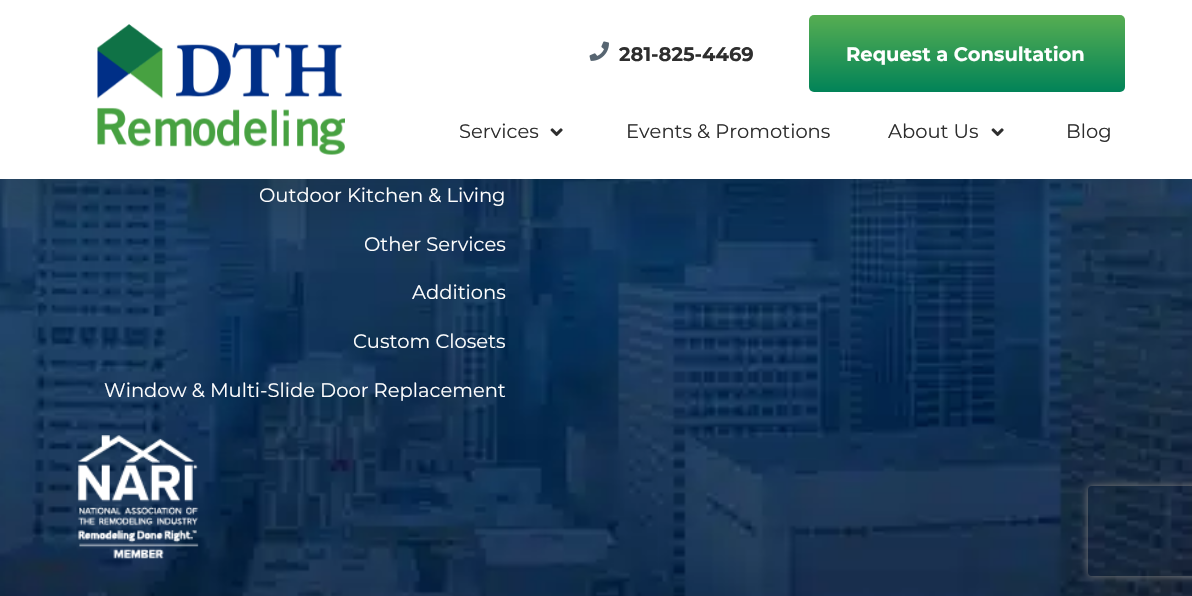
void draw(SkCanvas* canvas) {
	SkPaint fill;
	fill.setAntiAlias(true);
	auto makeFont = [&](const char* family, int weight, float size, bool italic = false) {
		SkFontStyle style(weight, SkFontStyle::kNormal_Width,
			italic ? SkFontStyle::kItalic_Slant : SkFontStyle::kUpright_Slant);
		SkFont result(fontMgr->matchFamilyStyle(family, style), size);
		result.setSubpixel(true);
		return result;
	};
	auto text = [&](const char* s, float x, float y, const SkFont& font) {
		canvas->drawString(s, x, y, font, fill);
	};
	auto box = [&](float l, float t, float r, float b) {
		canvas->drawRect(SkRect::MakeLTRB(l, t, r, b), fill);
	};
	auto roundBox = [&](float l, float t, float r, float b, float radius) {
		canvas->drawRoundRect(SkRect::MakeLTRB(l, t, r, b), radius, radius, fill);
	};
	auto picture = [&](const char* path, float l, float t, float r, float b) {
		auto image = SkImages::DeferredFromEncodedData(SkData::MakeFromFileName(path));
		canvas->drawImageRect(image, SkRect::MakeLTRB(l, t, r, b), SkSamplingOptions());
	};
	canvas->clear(0xFFFFFFFF);
	picture("image3.png", 0, 179, 1192, 596);
	fill.setColor(0x38000000);
	fill.setMaskFilter(SkMaskFilter::MakeBlur(kNormal_SkBlurStyle, 38));
	canvas->drawRect(SkRect::MakeLTRB(0, 17, 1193, 195), fill);
	fill.setMaskFilter(nullptr);
	fill.setColor(0xFFFFFFFF);
	box(0, 0, 1192, 179);
	picture("image0.png", 97, 24, 345, 155);
	picture("image1.png", 589, 41, 609, 61);
	{
		const SkColor colors[] = {0xFF54AC52, 0xFF018358};
		const float stops[] = {0.03f, 1};
		const SkPoint ends[] = {{967, 15}, {967, 92}};
		fill.setShader(SkGradientShader::MakeLinear(ends, colors, stops, 2, SkTileMode::kClamp));
		fill.setAlpha(255);
	}
	roundBox(809, 15, 1125, 92, 5);
	picture("image2.png", 550, 128, 563, 137);
	picture("image2.png", 991, 128, 1004, 137);
	picture("image4.png", 77, 435, 199, 559);
	canvas->save();
	canvas->clipPath(SkPathBuilder(SkPathFillType::kEvenOdd).moveTo(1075, 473).lineTo(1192, 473).lineTo(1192, 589).lineTo(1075, 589).close().moveTo(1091, 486).lineTo(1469, 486).cubicTo(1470.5f, 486, 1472, 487.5f, 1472, 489).lineTo(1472, 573).cubicTo(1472, 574.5f, 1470.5f, 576, 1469, 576).lineTo(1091, 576).cubicTo(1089.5f, 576, 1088, 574.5f, 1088, 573).lineTo(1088, 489).cubicTo(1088, 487.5f, 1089.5f, 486, 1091, 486).close().detach(), true);
	fill.setShader(nullptr);
	fill.setColor(0xFF808080);
	fill.setMaskFilter(SkMaskFilter::MakeBlur(kNormal_SkBlurStyle, 4));
	canvas->drawRoundRect(SkRect::MakeLTRB(1088, 486, 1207, 576), 3, 3, fill);
	fill.setMaskFilter(nullptr);
	canvas->restore();
	auto font1 = makeFont("Montserrat", 700, 19.5f);
	fill.setColor(0xFF2E2E2E);
	text("281-825-4469", 619, 61, font1);
	fill.setColor(0xFFFFFFFF);
	text("Request a Consultation", 846, 61, font1);
	auto font2 = makeFont("Montserrat", 400, 19.5f);
	fill.setColor(0xFF2E2E2E);
	text("Services", 459, 138, font2);
	text("Events & Promotions", 626, 138, font2);
	text("About Us", 888, 138, font2);
	text("Blog", 1066, 138, font2);
	fill.setColor(0xFFFFFFFF);
	text("Outdoor Kitchen & Living", 259, 202, font2);
	text("Other Services", 364, 251, font2);
	text("Additions", 412, 299, font2);
	text("Custom Closets", 353, 348, font2);
	text("Window & Multi-Slide Door Replacement", 104, 397, font2);
}
